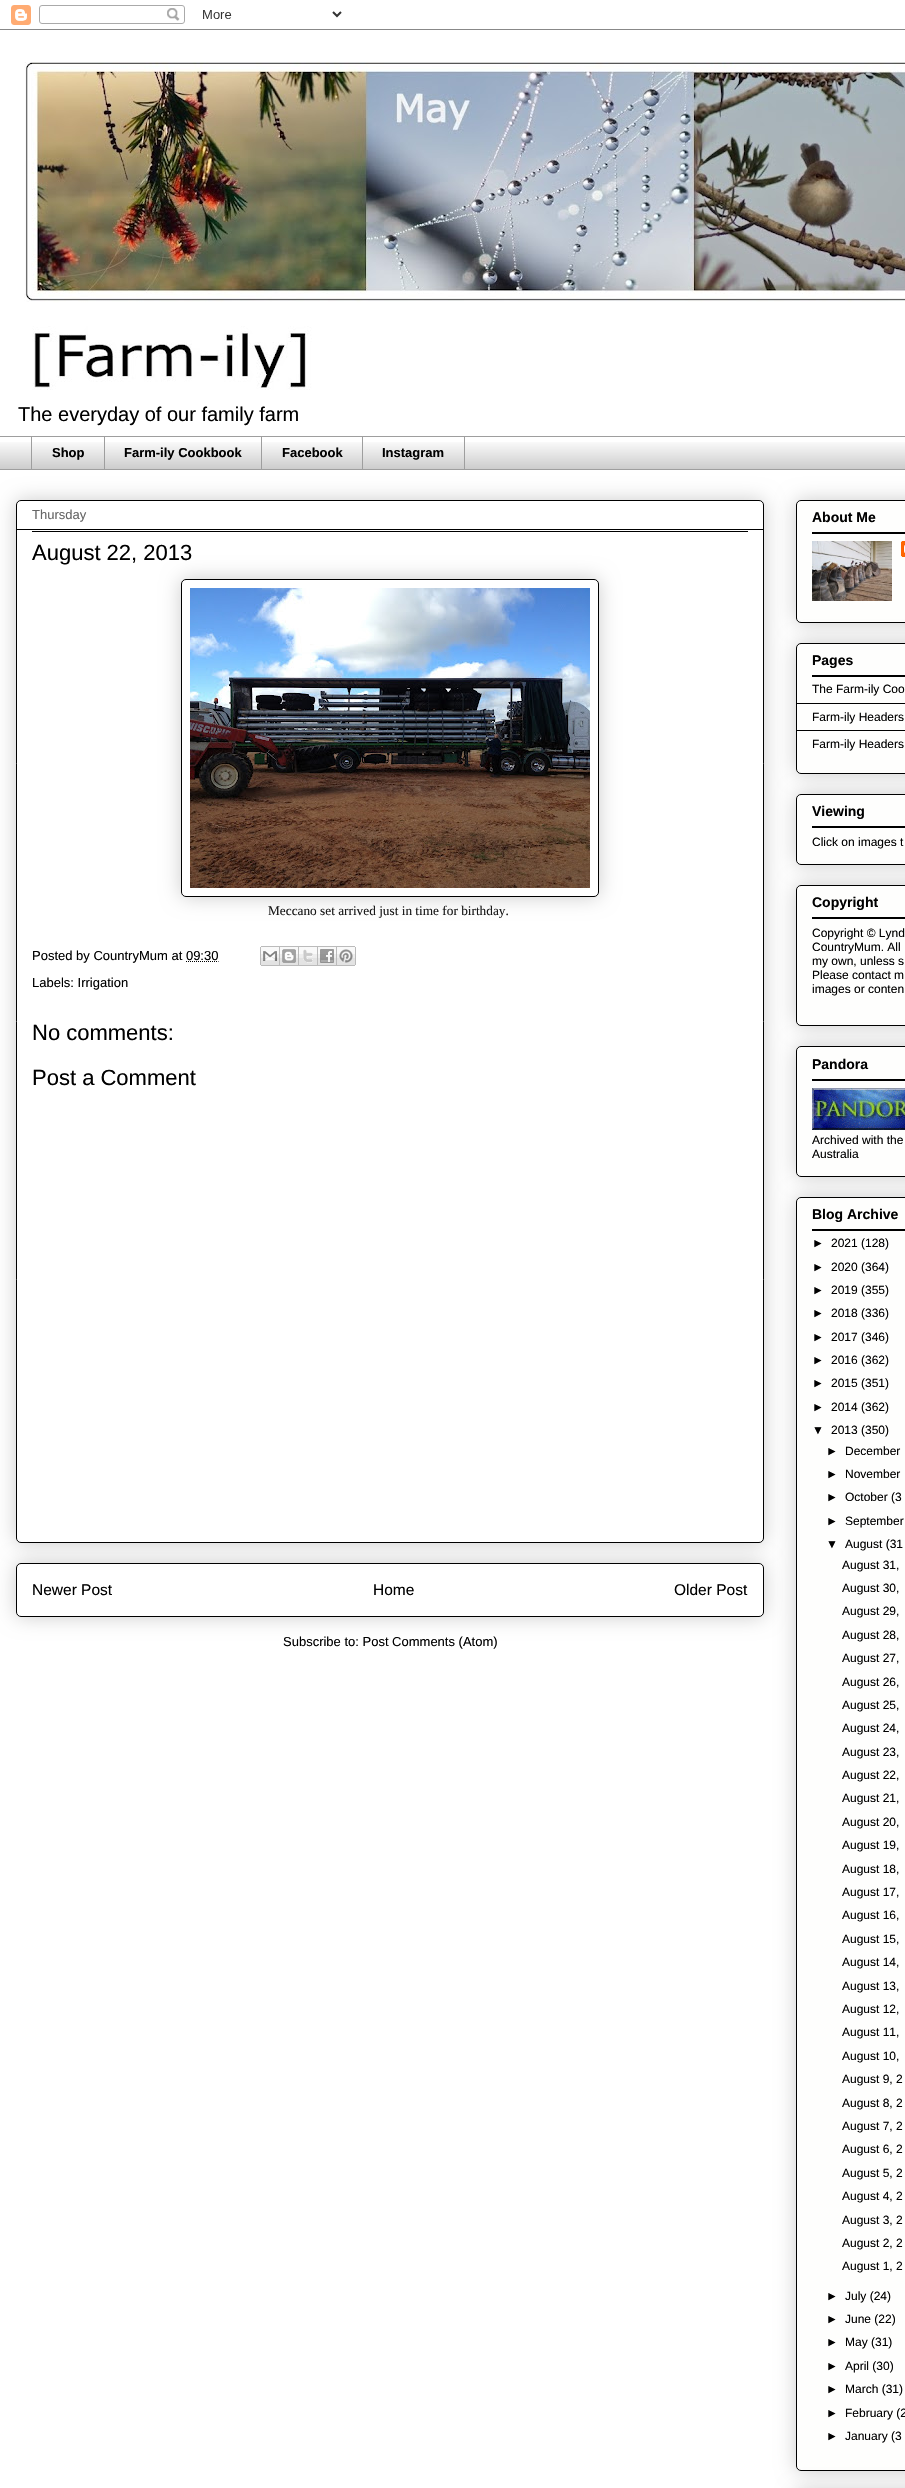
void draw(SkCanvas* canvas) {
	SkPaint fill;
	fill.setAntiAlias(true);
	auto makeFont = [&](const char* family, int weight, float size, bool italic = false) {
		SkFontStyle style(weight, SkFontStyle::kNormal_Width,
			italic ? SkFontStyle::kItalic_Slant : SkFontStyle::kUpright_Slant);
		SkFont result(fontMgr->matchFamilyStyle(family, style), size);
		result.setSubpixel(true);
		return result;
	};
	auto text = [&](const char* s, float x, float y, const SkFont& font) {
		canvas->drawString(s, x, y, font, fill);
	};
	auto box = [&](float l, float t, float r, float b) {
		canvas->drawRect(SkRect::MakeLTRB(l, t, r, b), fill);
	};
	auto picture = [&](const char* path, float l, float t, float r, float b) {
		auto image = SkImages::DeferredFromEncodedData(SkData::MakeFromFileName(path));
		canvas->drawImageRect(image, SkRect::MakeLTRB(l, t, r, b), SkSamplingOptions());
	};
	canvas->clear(0xFFFFFFFF);
	picture("image0.png", 0, 5, 905, 30);
	picture("image1.png", 24, 62, 905, 390);
	picture("image2.png", 0, 442, 905, 469);
	fill.setColor(0xFF9E9E9E);
	box(0, 436, 905, 437);
	box(31, 436, 32, 470);
	box(104, 436, 105, 470);
	box(261, 436, 262, 470);
	fill.setStyle(SkPaint::kStroke_Style);
	fill.setStrokeWidth(1);
	canvas->drawRect(SkRect::MakeLTRB(362.5f, 436.5f, 464.5f, 469.5f), fill);
	fill.setStyle(SkPaint::kFill_Style);
	box(0, 469, 905, 470);
	fill.setColor(0x33000000);
	fill.setMaskFilter(SkMaskFilter::MakeBlur(kNormal_SkBlurStyle, 10));
	canvas->drawRoundRect(SkRect::MakeLTRB(16, 1563, 764, 1617), 5, 5, fill);
	fill.setMaskFilter(nullptr);
	fill.setColor(0xFFFFFFFF);
	canvas->drawRoundRect(SkRect::MakeLTRB(16.5f, 1563.5f, 763.5f, 1616.5f), 4.5f, 4.5f, fill);
	fill.setStyle(SkPaint::kStroke_Style);
	fill.setColor(0xFF000000);
	canvas->drawRoundRect(SkRect::MakeLTRB(16.5f, 1563.5f, 763.5f, 1616.5f), 4.5f, 4.5f, fill);
	fill.setStyle(SkPaint::kFill_Style);
	fill.setColor(0x33000000);
	fill.setMaskFilter(SkMaskFilter::MakeBlur(kNormal_SkBlurStyle, 10));
	canvas->drawRoundRect(SkRect::MakeLTRB(16, 500, 764, 1543), 5, 5, fill);
	fill.setMaskFilter(nullptr);
	fill.setColor(0xFFFFFFFF);
	canvas->drawRoundRect(SkRect::MakeLTRB(16.5f, 500.5f, 763.5f, 1542.5f), 4.5f, 4.5f, fill);
	fill.setStyle(SkPaint::kStroke_Style);
	fill.setColor(0xFF000000);
	canvas->drawRoundRect(SkRect::MakeLTRB(16.5f, 500.5f, 763.5f, 1542.5f), 4.5f, 4.5f, fill);
	fill.setStyle(SkPaint::kFill_Style);
	box(17, 529, 763, 530);
	box(32, 531, 748, 532);
	fill.setColor(0x33000000);
	fill.setMaskFilter(SkMaskFilter::MakeBlur(kNormal_SkBlurStyle, 10));
	canvas->drawRoundRect(SkRect::MakeLTRB(181, 579, 599, 897), 5, 5, fill);
	fill.setMaskFilter(nullptr);
	fill.setColor(0xFFFFFFFF);
	canvas->drawRoundRect(SkRect::MakeLTRB(181.5f, 579.5f, 598.5f, 896.5f), 4.5f, 4.5f, fill);
	fill.setStyle(SkPaint::kStroke_Style);
	fill.setColor(0xFF000000);
	canvas->drawRoundRect(SkRect::MakeLTRB(181.5f, 579.5f, 598.5f, 896.5f), 4.5f, 4.5f, fill);
	picture("image3.png", 190, 588, 590, 888);
	picture("image4.png", 260, 946, 280, 966);
	picture("image5.png", 280, 946, 299, 966);
	picture("image6.png", 299, 946, 318, 966);
	picture("image7.png", 318, 946, 337, 966);
	picture("image8.png", 337, 946, 356, 966);
	fill.setPathEffect(SkDashPathEffect::Make({{1, 1}}, 0));
	canvas->drawPath(SkPathBuilder().moveTo(186, 961.5f).lineTo(218.5f, 961.5f).detach(), fill);
	fill.setPathEffect(nullptr);
	fill.setStyle(SkPaint::kFill_Style);
	fill.setColor(0x33000000);
	fill.setMaskFilter(SkMaskFilter::MakeBlur(kNormal_SkBlurStyle, 10));
	canvas->drawRoundRect(SkRect::MakeLTRB(796, 500, 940, 623), 5, 5, fill);
	fill.setMaskFilter(nullptr);
	fill.setColor(0xFFFEFEFD);
	canvas->drawRoundRect(SkRect::MakeLTRB(796.5f, 500.5f, 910.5f, 622.5f), 4.5f, 4.5f, fill);
	fill.setStyle(SkPaint::kStroke_Style);
	fill.setColor(0xFF000000);
	canvas->drawRoundRect(SkRect::MakeLTRB(796.5f, 500.5f, 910.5f, 622.5f), 4.5f, 4.5f, fill);
	fill.setStyle(SkPaint::kFill_Style);
	box(812, 532, 905, 534);
	picture("image9.png", 812, 541, 892, 601);
	picture("image10.png", 901, 541, 905, 557);
	fill.setColor(0x33000000);
	fill.setMaskFilter(SkMaskFilter::MakeBlur(kNormal_SkBlurStyle, 10));
	canvas->drawRoundRect(SkRect::MakeLTRB(796, 643, 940, 774), 5, 5, fill);
	fill.setMaskFilter(nullptr);
	fill.setColor(0xFFFEFEFD);
	canvas->drawRoundRect(SkRect::MakeLTRB(796.5f, 643.5f, 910.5f, 773.5f), 4.5f, 4.5f, fill);
	fill.setStyle(SkPaint::kStroke_Style);
	fill.setColor(0xFF000000);
	canvas->drawRoundRect(SkRect::MakeLTRB(796.5f, 643.5f, 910.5f, 773.5f), 4.5f, 4.5f, fill);
	fill.setStyle(SkPaint::kFill_Style);
	box(812, 675, 905, 677);
	box(797, 703, 905, 704);
	box(797, 730, 905, 731);
	fill.setColor(0x33000000);
	fill.setMaskFilter(SkMaskFilter::MakeBlur(kNormal_SkBlurStyle, 10));
	canvas->drawRoundRect(SkRect::MakeLTRB(796, 794, 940, 865), 5, 5, fill);
	fill.setMaskFilter(nullptr);
	fill.setColor(0xFFFEFEFD);
	canvas->drawRoundRect(SkRect::MakeLTRB(796.5f, 794.5f, 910.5f, 864.5f), 4.5f, 4.5f, fill);
	fill.setStyle(SkPaint::kStroke_Style);
	fill.setColor(0xFF000000);
	canvas->drawRoundRect(SkRect::MakeLTRB(796.5f, 794.5f, 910.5f, 864.5f), 4.5f, 4.5f, fill);
	fill.setStyle(SkPaint::kFill_Style);
	box(812, 826, 905, 828);
	fill.setColor(0x33000000);
	fill.setMaskFilter(SkMaskFilter::MakeBlur(kNormal_SkBlurStyle, 10));
	canvas->drawRoundRect(SkRect::MakeLTRB(796, 885, 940, 1026), 5, 5, fill);
	fill.setMaskFilter(nullptr);
	fill.setColor(0xFFFEFEFD);
	canvas->drawRoundRect(SkRect::MakeLTRB(796.5f, 885.5f, 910.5f, 1025.5f), 4.5f, 4.5f, fill);
	fill.setStyle(SkPaint::kStroke_Style);
	fill.setColor(0xFF000000);
	canvas->drawRoundRect(SkRect::MakeLTRB(796.5f, 885.5f, 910.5f, 1025.5f), 4.5f, 4.5f, fill);
	fill.setStyle(SkPaint::kFill_Style);
	box(812, 917, 905, 919);
	fill.setColor(0x33000000);
	fill.setMaskFilter(SkMaskFilter::MakeBlur(kNormal_SkBlurStyle, 10));
	canvas->drawRoundRect(SkRect::MakeLTRB(796, 1046, 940, 1177), 5, 5, fill);
	fill.setMaskFilter(nullptr);
	fill.setColor(0xFFFEFEFD);
	canvas->drawRoundRect(SkRect::MakeLTRB(796.5f, 1046.5f, 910.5f, 1176.5f), 4.5f, 4.5f, fill);
	fill.setStyle(SkPaint::kStroke_Style);
	fill.setColor(0xFF000000);
	canvas->drawRoundRect(SkRect::MakeLTRB(796.5f, 1046.5f, 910.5f, 1176.5f), 4.5f, 4.5f, fill);
	fill.setStyle(SkPaint::kFill_Style);
	box(812, 1079, 905, 1081);
	picture("image11.png", 812, 1088, 905, 1130);
	fill.setColor(0x33000000);
	fill.setMaskFilter(SkMaskFilter::MakeBlur(kNormal_SkBlurStyle, 10));
	canvas->drawRoundRect(SkRect::MakeLTRB(796, 1197, 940, 2471), 5, 5, fill);
	fill.setMaskFilter(nullptr);
	fill.setColor(0xFFFEFEFD);
	canvas->drawRoundRect(SkRect::MakeLTRB(796.5f, 1197.5f, 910.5f, 2470.5f), 4.5f, 4.5f, fill);
	fill.setStyle(SkPaint::kStroke_Style);
	fill.setColor(0xFF000000);
	canvas->drawRoundRect(SkRect::MakeLTRB(796.5f, 1197.5f, 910.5f, 2470.5f), 4.5f, 4.5f, fill);
	fill.setStyle(SkPaint::kFill_Style);
	box(812, 1229, 905, 1231);
	fill.setColor(0x33000000);
	fill.setMaskFilter(SkMaskFilter::MakeBlur(kNormal_SkBlurStyle, 10));
	canvas->drawRoundRect(SkRect::MakeLTRB(796, 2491, 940, 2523), 5, 5, fill);
	fill.setMaskFilter(nullptr);
	auto font1 = makeFont("Liberation Sans", 400, 20);
	fill.setColor(0xFF000000);
	text("The everyday of our family farm", 18, 421, font1);
	auto font2 = makeFont("Liberation Sans", 700, 13);
	text("Shop", 52, 457, font2);
	text("Farm-ily Cookbook", 124, 457, font2);
	text("Facebook", 282, 457, font2);
	text("Instagram", 382, 457, font2);
	auto font3 = makeFont("Liberation Sans", 400, 13);
	fill.setColor(0xFF666666);
	text("Thursday", 32, 519, font3);
	auto font4 = makeFont("Liberation Sans", 400, 22);
	fill.setColor(0xFF000000);
	text("August 22, 2013", 32, 560, font4);
	auto font5 = makeFont("Liberation Serif", 400, 13.3f);
	fill.setColor(0xFF191919);
	text("Meccano set arrived just in time for birthday.", 268, 915, font5);
	fill.setColor(0xFF000000);
	text("Posted by CountryMum at 09:30", 32, 960, font3);
	text("Labels: Irrigation", 32, 987, font3);
	text("No comments:", 32, 1040, font4);
	text("Post a Comment", 32, 1085, font4);
	auto font6 = makeFont("Liberation Sans", 400, 15.5f);
	text("Newer Post", 32, 1595, font6);
	text("Home", 373, 1595, font6);
	text("Older Post", 674, 1595, font6);
	text("Subscribe to: Post Comments (Atom)", 283, 1646, font3);
	auto font7 = makeFont("Liberation Sans", 700, 14);
	text("About Me", 812, 522, font7);
	text("Pages", 812, 665, font7);
	auto font8 = makeFont("Liberation Sans", 400, 12);
	text("The Farm-ily Coo", 812, 693, font8);
	text("Farm-ily Headers", 812, 721, font8);
	text("Farm-ily Headers", 812, 748, font8);
	text("Viewing", 812, 816, font7);
	text("Click on images t", 812, 846, font8);
	text("Copyright", 812, 907, font7);
	text("Copyright © Lynd", 812, 937, font8);
	text("CountryMum. All", 812, 951, font8);
	text("my own, unless s", 812, 965, font8);
	text("Please contact m", 812, 979, font8);
	text("images or conten", 812, 993, font8);
	text("Pandora", 812, 1069, font7);
	text("Archived with the", 812, 1144, font8);
	text("Australia", 812, 1158, font8);
	text("Blog Archive", 812, 1219, font7);
	text("►", 812, 1247, font8);
	text("2021 (128)", 831, 1247, font8);
	text("►", 812, 1271, font8);
	text("2020 (364)", 831, 1271, font8);
	text("►", 812, 1294, font8);
	text("2019 (355)", 831, 1294, font8);
	text("►", 812, 1317, font8);
	text("2018 (336)", 831, 1317, font8);
	text("►", 812, 1341, font8);
	text("2017 (346)", 831, 1341, font8);
	text("►", 812, 1364, font8);
	text("2016 (362)", 831, 1364, font8);
	text("►", 812, 1387, font8);
	text("2015 (351)", 831, 1387, font8);
	text("►", 812, 1411, font8);
	text("2014 (362)", 831, 1411, font8);
	text("▼", 812, 1434, font8);
	text("2013 (350)", 831, 1434, font8);
	text("►", 826, 1455, font8);
	text("December", 845, 1455, font8);
	text("►", 826, 1478, font8);
	text("November", 845, 1478, font8);
	text("►", 826, 1501, font8);
	text("October (3", 845, 1501, font8);
	text("►", 826, 1525, font8);
	text("September", 845, 1525, font8);
	text("▼", 826, 1548, font8);
	text("August (31", 845, 1548, font8);
	text("August 31,", 842, 1569, font8);
	text("August 30,", 842, 1592, font8);
	text("August 29,", 842, 1615, font8);
	text("August 28,", 842, 1639, font8);
	text("August 27,", 842, 1662, font8);
	text("August 26,", 842, 1686, font8);
	text("August 25,", 842, 1709, font8);
	text("August 24,", 842, 1732, font8);
	text("August 23,", 842, 1756, font8);
	text("August 22,", 842, 1779, font8);
	text("August 21,", 842, 1802, font8);
	text("August 20,", 842, 1826, font8);
	text("August 19,", 842, 1849, font8);
	text("August 18,", 842, 1873, font8);
	text("August 17,", 842, 1896, font8);
	text("August 16,", 842, 1919, font8);
	text("August 15,", 842, 1943, font8);
	text("August 14,", 842, 1966, font8);
	text("August 13,", 842, 1990, font8);
	text("August 12,", 842, 2013, font8);
	text("August 11,", 842, 2036, font8);
	text("August 10,", 842, 2060, font8);
	text("August 9, 2", 842, 2083, font8);
	text("August 8, 2", 842, 2107, font8);
	text("August 7, 2", 842, 2130, font8);
	text("August 6, 2", 842, 2153, font8);
	text("August 5, 2", 842, 2177, font8);
	text("August 4, 2", 842, 2200, font8);
	text("August 3, 2", 842, 2224, font8);
	text("August 2, 2", 842, 2247, font8);
	text("August 1, 2", 842, 2270, font8);
	text("►", 826, 2300, font8);
	text("July (24)", 845, 2300, font8);
	text("►", 826, 2323, font8);
	text("June (22)", 845, 2323, font8);
	text("►", 826, 2346, font8);
	text("May (31)", 845, 2346, font8);
	text("►", 826, 2370, font8);
	text("April (30)", 845, 2370, font8);
	text("►", 826, 2393, font8);
	text("March (31)", 845, 2393, font8);
	text("►", 826, 2417, font8);
	text("February (2", 845, 2417, font8);
	text("►", 826, 2440, font8);
	text("January (3", 845, 2440, font8);
}
